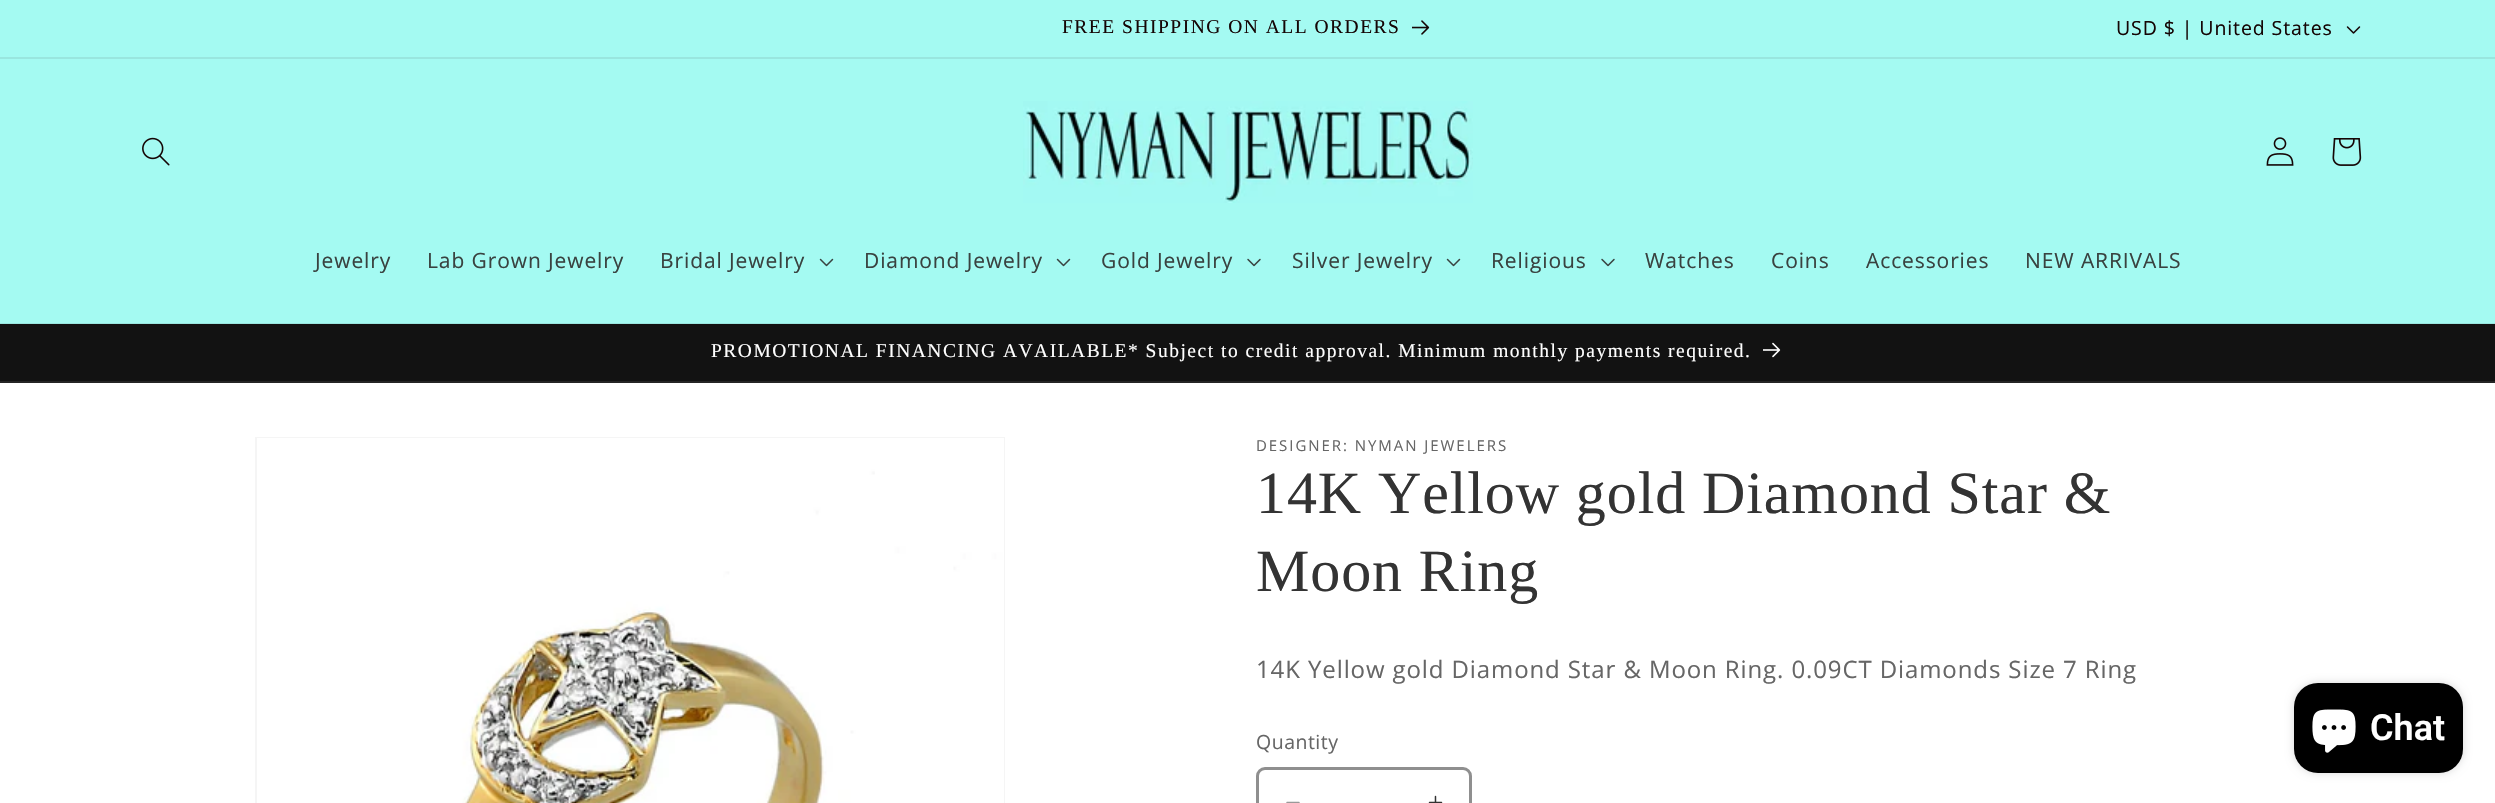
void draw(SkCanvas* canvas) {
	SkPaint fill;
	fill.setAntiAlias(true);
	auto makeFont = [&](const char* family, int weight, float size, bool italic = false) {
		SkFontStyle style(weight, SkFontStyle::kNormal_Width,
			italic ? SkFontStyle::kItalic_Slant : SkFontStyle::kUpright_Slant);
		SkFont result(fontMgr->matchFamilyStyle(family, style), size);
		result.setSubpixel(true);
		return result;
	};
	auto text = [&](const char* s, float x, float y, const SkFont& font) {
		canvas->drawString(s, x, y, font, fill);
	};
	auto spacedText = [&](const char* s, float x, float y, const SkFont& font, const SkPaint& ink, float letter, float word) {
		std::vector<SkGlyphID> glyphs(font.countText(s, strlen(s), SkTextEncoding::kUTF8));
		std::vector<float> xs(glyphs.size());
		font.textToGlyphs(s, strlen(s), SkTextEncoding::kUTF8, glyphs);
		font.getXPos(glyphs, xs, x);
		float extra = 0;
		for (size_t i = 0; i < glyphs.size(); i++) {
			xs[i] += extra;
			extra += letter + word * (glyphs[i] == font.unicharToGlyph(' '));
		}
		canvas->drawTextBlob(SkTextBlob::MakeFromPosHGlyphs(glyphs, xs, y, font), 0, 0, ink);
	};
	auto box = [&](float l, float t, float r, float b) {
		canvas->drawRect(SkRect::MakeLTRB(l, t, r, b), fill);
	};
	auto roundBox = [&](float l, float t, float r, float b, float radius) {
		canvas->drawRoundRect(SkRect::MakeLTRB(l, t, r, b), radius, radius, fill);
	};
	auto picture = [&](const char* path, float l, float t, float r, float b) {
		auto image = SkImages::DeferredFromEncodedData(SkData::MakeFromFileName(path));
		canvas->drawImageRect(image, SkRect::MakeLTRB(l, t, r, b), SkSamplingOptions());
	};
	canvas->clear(0xFFFFFFFF);
	fill.setColor(0xFFA4FAF2);
	box(0, 0, 2495, 57);
	fill.setColor(0xFF99E6DF);
	box(0, 57, 2495, 59);
	picture("image0.png", 1412, 20, 1430, 35);
	picture("image1.png", 2346, 26, 2361, 34);
	fill.setColor(0xFFA4FAF2);
	box(0, 59, 2495, 323);
	fill.setColor(0xFF99E6DF);
	box(0, 323, 2495, 324);
	picture("image2.png", 142, 137, 170, 166);
	picture("image3.png", 1023, 101, 1473, 203);
	picture("image4.png", 2266, 137, 2294, 166);
	picture("image5.png", 2332, 138, 2362, 166);
	picture("image6.png", 819, 258, 834, 267);
	picture("image6.png", 1056, 258, 1071, 267);
	picture("image7.png", 1247, 258, 1261, 267);
	picture("image6.png", 1446, 258, 1461, 267);
	picture("image7.png", 1601, 258, 1615, 267);
	fill.setColor(0xFF121212);
	box(0, 325, 2495, 381);
	fill.setColor(0xFF121111);
	box(0, 324, 2495, 325);
	fill.setColor(0xFF252525);
	box(0, 381, 2495, 383);
	picture("image8.png", 1763, 342, 1781, 358);
	fill.setStyle(SkPaint::kStroke_Style);
	fill.setStrokeWidth(2);
	fill.setColor(0xFFF5F5F5);
	canvas->drawRect(SkRect::MakeLTRB(256, 438, 1004, 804), fill);
	picture("image9.png", 257, 438, 1004, 803);
	picture("image10.png", 1286, 801, 1300, 803);
	picture("image11.png", 1428, 795, 1443, 803);
	fill.setStrokeWidth(3);
	fill.setColor(0xFF8F8F8F);
	canvas->drawRoundRect(SkRect::MakeLTRB(1257.5f, 768.5f, 1470.5f, 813.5f), 7.5f, 7.5f, fill);
	fill.setStyle(SkPaint::kFill_Style);
	fill.setColor(0x26000000);
	fill.setMaskFilter(SkMaskFilter::MakeBlur(kNormal_SkBlurStyle, 4));
	canvas->drawRoundRect(SkRect::MakeLTRB(2294, 683, 2463, 773), 24, 24, fill);
	fill.setMaskFilter(nullptr);
	fill.setColor(0xFF000000);
	roundBox(2294, 683, 2463, 773, 24);
	picture("image12.png", 2312, 709, 2356, 753);
	auto font1 = makeFont("Liberation Serif", 400, 19.5f);
	fill.setColor(0xFF150505);
	spacedText("FREE SHIPPING ON ALL ORDERS", 1062, 33, font1, fill, 1.5f, 0);
	auto font2 = makeFont("Open Sans", 400, 19.5f);
	spacedText("USD $ | United States", 2116, 35, font2, fill, 0.9f, 0);
	auto font3 = makeFont("Open Sans", 400, 21);
	fill.setColor(0xFF394240);
	spacedText("Jewelry", 315, 268, font3, fill, 0.9f, 0);
	spacedText("Lab Grown Jewelry", 427, 268, font3, fill, 0.9f, 0);
	spacedText("Bridal Jewelry", 660, 268, font3, fill, 0.9f, 0);
	spacedText("Diamond Jewelry", 864, 268, font3, fill, 0.9f, 0);
	spacedText("Gold Jewelry", 1101, 268, font3, fill, 0.9f, 0);
	spacedText("Silver Jewelry", 1292, 268, font3, fill, 0.9f, 0);
	spacedText("Religious", 1491, 268, font3, fill, 0.9f, 0);
	spacedText("Watches", 1645, 268, font3, fill, 0.9f, 0);
	spacedText("Coins", 1771, 268, font3, fill, 0.9f, 0);
	spacedText("Accessories", 1866, 268, font3, fill, 0.9f, 0);
	spacedText("NEW ARRIVALS", 2025, 268, font3, fill, 0.9f, 0);
	fill.setColor(0xFFFFFFFF);
	spacedText("PROMOTIONAL FINANCING AVAILABLE* Subject to credit approval. Minimum monthly payments required.", 711, 357, font1, fill, 1.5f, 0);
	auto font4 = makeFont("Open Sans", 400, 15);
	fill.setColor(0xFF666666);
	spacedText("DESIGNER: NYMAN JEWELERS", 1256, 451, font4, fill, 1.95f, 0);
	auto font5 = makeFont("Liberation Serif", 400, 60);
	fill.setColor(0xFF333333);
	spacedText("14K Yellow gold Diamond Star &", 1256, 513, font5, fill, 0.9f, 0);
	spacedText("Moon Ring", 1256, 591, font5, fill, 0.9f, 0);
	auto font6 = makeFont("Open Sans", 400, 24);
	fill.setColor(0xFF666666);
	spacedText("14K Yellow gold Diamond Star & Moon Ring. 0.09CT Diamonds Size 7 Ring", 1256, 678, font6, fill, 0.9f, 0);
	spacedText("Quantity", 1256, 749, font2, fill, 0.5f, 0);
	auto font7 = makeFont("Roboto", 600, 36);
	fill.setColor(0xFFFFFFFF);
	text("Chat", 2370, 740, font7);
}
